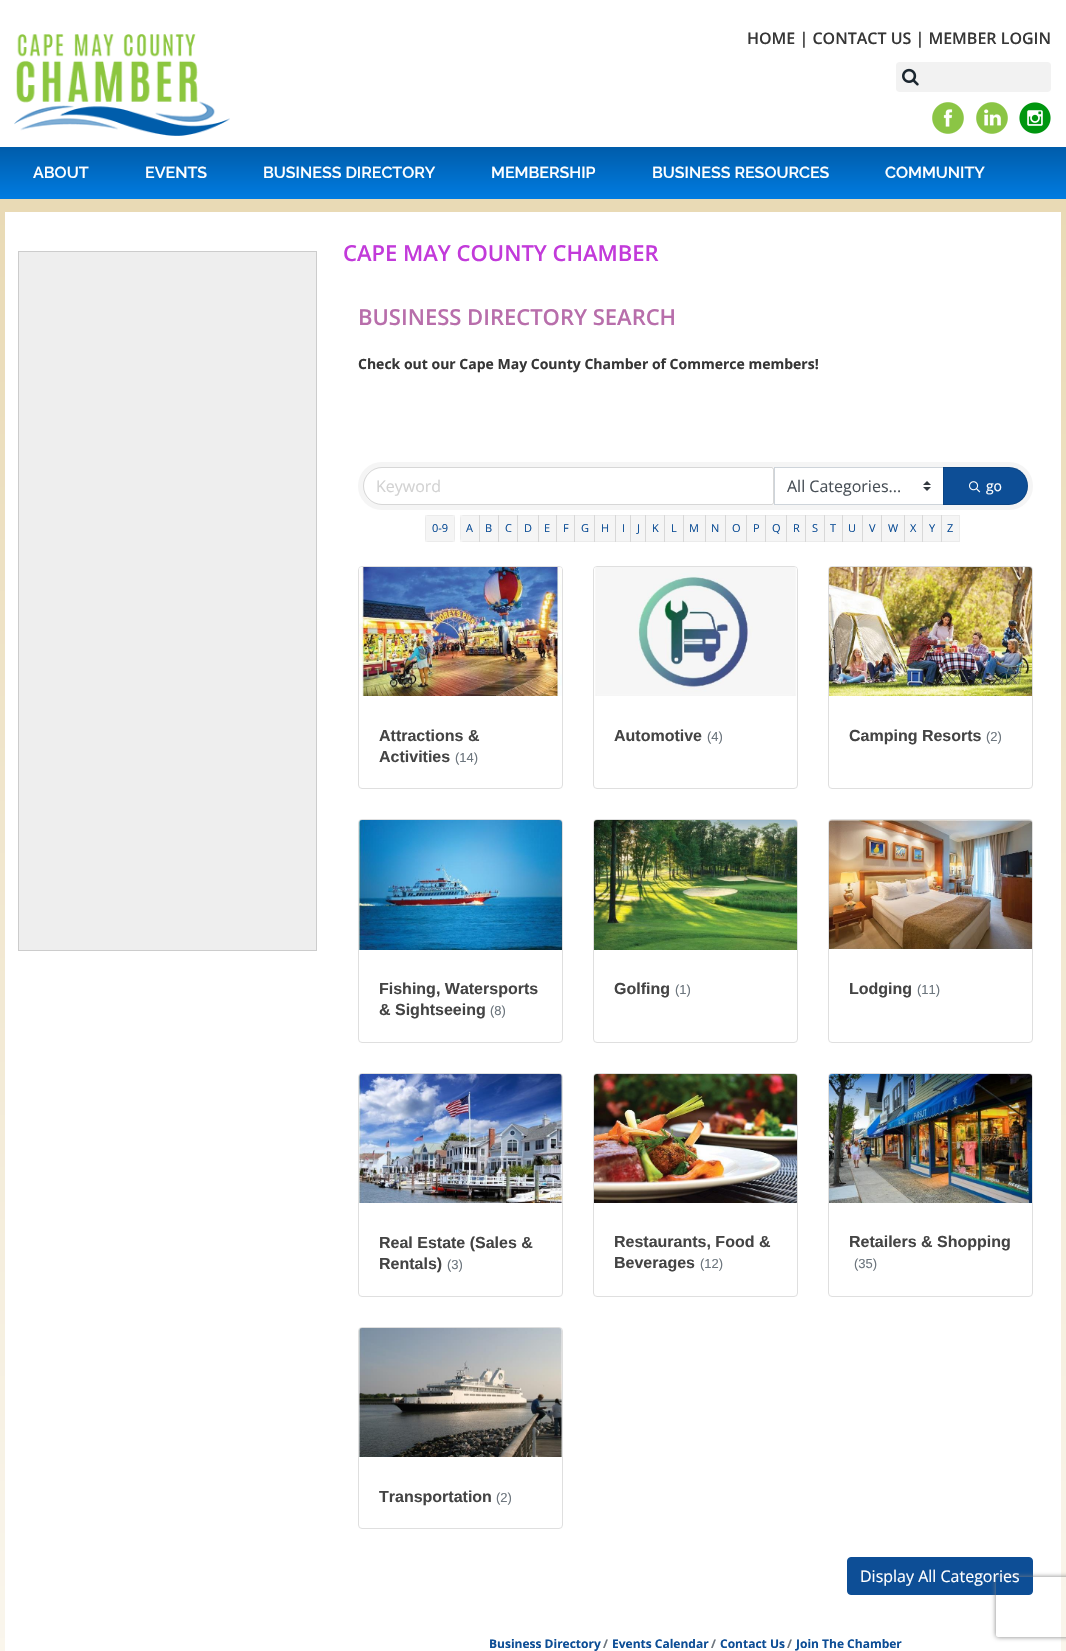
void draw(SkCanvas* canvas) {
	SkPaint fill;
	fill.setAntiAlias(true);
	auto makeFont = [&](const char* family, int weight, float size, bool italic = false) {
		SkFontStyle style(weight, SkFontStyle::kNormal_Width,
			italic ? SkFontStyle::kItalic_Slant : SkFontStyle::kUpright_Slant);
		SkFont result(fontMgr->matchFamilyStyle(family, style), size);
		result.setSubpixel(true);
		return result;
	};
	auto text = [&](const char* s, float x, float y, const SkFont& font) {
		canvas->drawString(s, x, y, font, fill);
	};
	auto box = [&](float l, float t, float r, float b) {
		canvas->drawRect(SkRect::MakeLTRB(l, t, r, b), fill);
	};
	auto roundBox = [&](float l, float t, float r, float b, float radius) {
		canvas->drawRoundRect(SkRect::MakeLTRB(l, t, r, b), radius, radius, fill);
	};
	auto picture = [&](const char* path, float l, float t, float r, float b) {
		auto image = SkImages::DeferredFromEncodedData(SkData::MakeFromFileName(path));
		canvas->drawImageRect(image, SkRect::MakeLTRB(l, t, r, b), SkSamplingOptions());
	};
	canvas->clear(0xFFFFFFFF);
	picture("image0.png", 14, 34, 230, 136);
	fill.setColor(0xFFF2F2F2);
	roundBox(896, 62, 1051, 92, 4);
	picture("image1.png", 902, 68, 919, 86);
	picture("image2.png", 932, 102, 964, 134);
	picture("image3.png", 976, 102, 1008, 134);
	picture("image4.png", 1019, 102, 1051, 134);
	{
		const SkColor colors[] = {0xFF005DAB, 0xFF007BE0};
		const float stops[] = {0.02f, 0.98f};
		const SkPoint ends[] = {{533, 147}, {533, 199}};
		fill.setShader(SkGradientShader::MakeLinear(ends, colors, stops, 2, SkTileMode::kClamp));
		fill.setAlpha(255);
	}
	box(0, 147, 1066, 199);
	{
		const SkColor colors[] = {0xFFE9DAB5, 0xFFFBF8F1};
		const float stops[] = {0, 1};
		const SkPoint ends[] = {{533, 199}, {533, 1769}};
		fill.setShader(SkGradientShader::MakeLinear(ends, colors, stops, 2, SkTileMode::kClamp));
		fill.setAlpha(255);
	}
	box(0, 199, 1066, 1651);
	fill.setShader(nullptr);
	fill.setColor(0xFFFFFFFF);
	box(5, 212, 1061, 1651);
	fill.setColor(0xFFEEEEEE);
	canvas->drawRect(SkRect::MakeLTRB(18.5f, 251.5f, 316.5f, 950.5f), fill);
	fill.setStyle(SkPaint::kStroke_Style);
	fill.setStrokeWidth(1);
	fill.setColor(0xFFCCCCCC);
	canvas->drawRect(SkRect::MakeLTRB(18.5f, 251.5f, 316.5f, 950.5f), fill);
	fill.setStyle(SkPaint::kFill_Style);
	fill.setColor(0xFFF5F5F5);
	roundBox(358, 462, 1033, 510, 24);
	fill.setColor(0xFFFFFFFF);
	canvas->drawPath(SkPathBuilder().moveTo(382, 468).lineTo(771.5f, 468).cubicTo(772.5f, 468, 773, 468.5f, 773, 469.5f).lineTo(773, 502.5f).cubicTo(773, 503.5f, 772.5f, 504, 771.5f, 504).lineTo(382, 504).cubicTo(372, 504, 364, 496, 364, 486).cubicTo(364, 476, 372, 468, 382, 468).close().detach(), fill);
	fill.setStyle(SkPaint::kStroke_Style);
	fill.setColor(0x1F000000);
	canvas->drawPath(SkPathBuilder().moveTo(382, 467.5f).lineTo(771.5f, 467.5f).cubicTo(772.5f, 467.5f, 773.5f, 468.5f, 773.5f, 469.5f).lineTo(773.5f, 502.5f).cubicTo(773.5f, 503.5f, 772.5f, 504.5f, 771.5f, 504.5f).lineTo(382, 504.5f).cubicTo(372, 504.5f, 363.5f, 496, 363.5f, 486).cubicTo(363.5f, 476, 372, 467.5f, 382, 467.5f).close().detach(), fill);
	fill.setStyle(SkPaint::kFill_Style);
	fill.setColor(0xFFFFFFFF);
	box(775, 468, 943, 504);
	picture("image5.png", 923, 481, 931, 491);
	fill.setStyle(SkPaint::kStroke_Style);
	fill.setColor(0xFFCED4DA);
	canvas->drawRect(SkRect::MakeLTRB(774.5f, 467.5f, 943.5f, 504.5f), fill);
	fill.setStyle(SkPaint::kFill_Style);
	fill.setColor(0xFF0D4E96);
	canvas->drawPath(SkPathBuilder().moveTo(943, 467).lineTo(1009, 467).cubicTo(1019.5f, 467, 1028, 475.5f, 1028, 486).cubicTo(1028, 496.5f, 1019.5f, 505, 1009, 505).lineTo(943, 505).close().detach(), fill);
	fill.setStyle(SkPaint::kStroke_Style);
	fill.setColor(0x1F000000);
	canvas->drawPath(SkPathBuilder().moveTo(943.5f, 467.5f).lineTo(1009, 467.5f).cubicTo(1019, 467.5f, 1027.5f, 476, 1027.5f, 486).cubicTo(1027.5f, 496, 1019, 504.5f, 1009, 504.5f).lineTo(943.5f, 504.5f).close().detach(), fill);
	picture("image6.png", 969, 481, 981, 493);
	fill.setStyle(SkPaint::kFill_Style);
	fill.setColor(0xFFF5F5F5);
	roundBox(425, 515, 455, 542, 4);
	fill.setStyle(SkPaint::kStroke_Style);
	fill.setColor(0x0A000000);
	canvas->drawRect(SkRect::MakeLTRB(425.5f, 515.5f, 454.5f, 541.5f), fill);
	fill.setStyle(SkPaint::kFill_Style);
	fill.setColor(0xFFF5F5F5);
	canvas->drawPath(SkPathBuilder().moveTo(464, 515).lineTo(480, 515).lineTo(480, 542).lineTo(464, 542).cubicTo(462, 542, 460, 540, 460, 538).lineTo(460, 519).cubicTo(460, 517, 462, 515, 464, 515).close().detach(), fill);
	fill.setStyle(SkPaint::kStroke_Style);
	fill.setColor(0x0A000000);
	canvas->drawRect(SkRect::MakeLTRB(460.5f, 515.5f, 479.5f, 541.5f), fill);
	fill.setStyle(SkPaint::kFill_Style);
	box(479, 515, 499, 542);
	fill.setStyle(SkPaint::kStroke_Style);
	canvas->drawRect(SkRect::MakeLTRB(479.5f, 515.5f, 498.5f, 541.5f), fill);
	fill.setStyle(SkPaint::kFill_Style);
	box(498, 515, 518, 542);
	fill.setStyle(SkPaint::kStroke_Style);
	canvas->drawRect(SkRect::MakeLTRB(498.5f, 515.5f, 517.5f, 541.5f), fill);
	fill.setStyle(SkPaint::kFill_Style);
	box(517, 515, 539, 542);
	fill.setStyle(SkPaint::kStroke_Style);
	canvas->drawRect(SkRect::MakeLTRB(517.5f, 515.5f, 538.5f, 541.5f), fill);
	fill.setStyle(SkPaint::kFill_Style);
	box(538, 515, 557, 542);
	fill.setStyle(SkPaint::kStroke_Style);
	canvas->drawRect(SkRect::MakeLTRB(538.5f, 515.5f, 556.5f, 541.5f), fill);
	fill.setStyle(SkPaint::kFill_Style);
	box(556, 515, 575, 542);
	fill.setStyle(SkPaint::kStroke_Style);
	canvas->drawRect(SkRect::MakeLTRB(556.5f, 515.5f, 574.5f, 541.5f), fill);
	fill.setStyle(SkPaint::kFill_Style);
	box(574, 515, 595, 542);
	fill.setStyle(SkPaint::kStroke_Style);
	canvas->drawRect(SkRect::MakeLTRB(574.5f, 515.5f, 594.5f, 541.5f), fill);
	fill.setStyle(SkPaint::kFill_Style);
	box(594, 515, 616, 542);
	fill.setStyle(SkPaint::kStroke_Style);
	canvas->drawRect(SkRect::MakeLTRB(594.5f, 515.5f, 615.5f, 541.5f), fill);
	fill.setStyle(SkPaint::kFill_Style);
	box(615, 515, 631, 542);
	fill.setStyle(SkPaint::kStroke_Style);
	canvas->drawRect(SkRect::MakeLTRB(615.5f, 515.5f, 630.5f, 541.5f), fill);
	fill.setStyle(SkPaint::kFill_Style);
	box(630, 515, 646, 542);
	fill.setStyle(SkPaint::kStroke_Style);
	canvas->drawRect(SkRect::MakeLTRB(630.5f, 515.5f, 645.5f, 541.5f), fill);
	fill.setStyle(SkPaint::kFill_Style);
	box(645, 515, 665, 542);
	fill.setStyle(SkPaint::kStroke_Style);
	canvas->drawRect(SkRect::MakeLTRB(645.5f, 515.5f, 664.5f, 541.5f), fill);
	fill.setStyle(SkPaint::kFill_Style);
	box(664, 515, 684, 542);
	fill.setStyle(SkPaint::kStroke_Style);
	canvas->drawRect(SkRect::MakeLTRB(664.5f, 515.5f, 683.5f, 541.5f), fill);
	fill.setStyle(SkPaint::kFill_Style);
	box(683, 515, 706, 542);
	fill.setStyle(SkPaint::kStroke_Style);
	canvas->drawRect(SkRect::MakeLTRB(683.5f, 515.5f, 705.5f, 541.5f), fill);
	fill.setStyle(SkPaint::kFill_Style);
	box(705, 515, 726, 542);
	fill.setStyle(SkPaint::kStroke_Style);
	canvas->drawRect(SkRect::MakeLTRB(705.5f, 515.5f, 725.5f, 541.5f), fill);
	fill.setStyle(SkPaint::kFill_Style);
	box(725, 515, 747, 542);
	fill.setStyle(SkPaint::kStroke_Style);
	canvas->drawRect(SkRect::MakeLTRB(725.5f, 515.5f, 746.5f, 541.5f), fill);
	fill.setStyle(SkPaint::kFill_Style);
	box(746, 515, 766, 542);
	fill.setStyle(SkPaint::kStroke_Style);
	canvas->drawRect(SkRect::MakeLTRB(746.5f, 515.5f, 765.5f, 541.5f), fill);
	fill.setStyle(SkPaint::kFill_Style);
	box(765, 515, 787, 542);
	fill.setStyle(SkPaint::kStroke_Style);
	canvas->drawRect(SkRect::MakeLTRB(765.5f, 515.5f, 786.5f, 541.5f), fill);
	fill.setStyle(SkPaint::kFill_Style);
	box(786, 515, 806, 542);
	fill.setStyle(SkPaint::kStroke_Style);
	canvas->drawRect(SkRect::MakeLTRB(786.5f, 515.5f, 805.5f, 541.5f), fill);
	fill.setStyle(SkPaint::kFill_Style);
	box(805, 515, 825, 542);
	fill.setStyle(SkPaint::kStroke_Style);
	canvas->drawRect(SkRect::MakeLTRB(805.5f, 515.5f, 824.5f, 541.5f), fill);
	fill.setStyle(SkPaint::kFill_Style);
	box(824, 515, 843, 542);
	fill.setStyle(SkPaint::kStroke_Style);
	canvas->drawRect(SkRect::MakeLTRB(824.5f, 515.5f, 842.5f, 541.5f), fill);
	fill.setStyle(SkPaint::kFill_Style);
	box(842, 515, 863, 542);
	fill.setStyle(SkPaint::kStroke_Style);
	canvas->drawRect(SkRect::MakeLTRB(842.5f, 515.5f, 862.5f, 541.5f), fill);
	fill.setStyle(SkPaint::kFill_Style);
	box(862, 515, 882, 542);
	fill.setStyle(SkPaint::kStroke_Style);
	canvas->drawRect(SkRect::MakeLTRB(862.5f, 515.5f, 881.5f, 541.5f), fill);
	fill.setStyle(SkPaint::kFill_Style);
	box(881, 515, 905, 542);
	fill.setStyle(SkPaint::kStroke_Style);
	canvas->drawRect(SkRect::MakeLTRB(881.5f, 515.5f, 904.5f, 541.5f), fill);
	fill.setStyle(SkPaint::kFill_Style);
	box(904, 515, 923, 542);
	fill.setStyle(SkPaint::kStroke_Style);
	canvas->drawRect(SkRect::MakeLTRB(904.5f, 515.5f, 922.5f, 541.5f), fill);
	fill.setStyle(SkPaint::kFill_Style);
	box(922, 515, 942, 542);
	fill.setStyle(SkPaint::kStroke_Style);
	canvas->drawRect(SkRect::MakeLTRB(922.5f, 515.5f, 941.5f, 541.5f), fill);
	fill.setStyle(SkPaint::kFill_Style);
	box(941, 515, 960, 542);
	fill.setStyle(SkPaint::kStroke_Style);
	canvas->drawRect(SkRect::MakeLTRB(941.5f, 515.5f, 959.5f, 541.5f), fill);
	fill.setColor(0xFFDFDFDF);
	canvas->drawRoundRect(SkRect::MakeLTRB(358.5f, 566.5f, 562.5f, 788.5f), 3.5f, 3.5f, fill);
	picture("image7.png", 359, 567, 562, 696);
	canvas->drawRoundRect(SkRect::MakeLTRB(593.5f, 566.5f, 797.5f, 788.5f), 3.5f, 3.5f, fill);
	picture("image8.png", 594, 567, 797, 696);
	canvas->drawRoundRect(SkRect::MakeLTRB(828.5f, 566.5f, 1032.5f, 788.5f), 3.5f, 3.5f, fill);
	picture("image9.png", 829, 567, 1032, 696);
	canvas->drawRoundRect(SkRect::MakeLTRB(358.5f, 819.5f, 562.5f, 1042.5f), 3.5f, 3.5f, fill);
	picture("image10.png", 359, 820, 562, 950);
	canvas->drawRoundRect(SkRect::MakeLTRB(593.5f, 819.5f, 797.5f, 1042.5f), 3.5f, 3.5f, fill);
	picture("image11.png", 594, 820, 797, 950);
	canvas->drawRoundRect(SkRect::MakeLTRB(828.5f, 819.5f, 1032.5f, 1042.5f), 3.5f, 3.5f, fill);
	picture("image12.png", 829, 820, 1032, 949);
	canvas->drawRoundRect(SkRect::MakeLTRB(358.5f, 1073.5f, 562.5f, 1296.5f), 3.5f, 3.5f, fill);
	picture("image13.png", 359, 1074, 562, 1203);
	canvas->drawRoundRect(SkRect::MakeLTRB(593.5f, 1073.5f, 797.5f, 1296.5f), 3.5f, 3.5f, fill);
	picture("image14.png", 594, 1074, 797, 1203);
	canvas->drawRoundRect(SkRect::MakeLTRB(828.5f, 1073.5f, 1032.5f, 1296.5f), 3.5f, 3.5f, fill);
	picture("image15.png", 829, 1074, 1032, 1203);
	canvas->drawRoundRect(SkRect::MakeLTRB(358.5f, 1327.5f, 562.5f, 1528.5f), 3.5f, 3.5f, fill);
	picture("image16.png", 359, 1328, 562, 1457);
	fill.setStyle(SkPaint::kFill_Style);
	fill.setColor(0xFF0D4E96);
	canvas->drawRoundRect(SkRect::MakeLTRB(847.5f, 1557.5f, 1032.5f, 1594.5f), 3.5f, 3.5f, fill);
	fill.setStyle(SkPaint::kStroke_Style);
	canvas->drawRoundRect(SkRect::MakeLTRB(847.5f, 1557.5f, 1032.5f, 1594.5f), 3.5f, 3.5f, fill);
	canvas->save();
	canvas->clipPath(SkPathBuilder(SkPathFillType::kEvenOdd).moveTo(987, 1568).lineTo(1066, 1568).lineTo(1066, 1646).lineTo(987, 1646).close().moveTo(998, 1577).lineTo(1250, 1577).cubicTo(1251, 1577, 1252, 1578, 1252, 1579).lineTo(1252, 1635).cubicTo(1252, 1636, 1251, 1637, 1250, 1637).lineTo(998, 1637).cubicTo(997, 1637, 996, 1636, 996, 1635).lineTo(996, 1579).cubicTo(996, 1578, 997, 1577, 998, 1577).close().detach(), true);
	fill.setStyle(SkPaint::kFill_Style);
	fill.setColor(0xFF808080);
	fill.setMaskFilter(SkMaskFilter::MakeBlur(kNormal_SkBlurStyle, 2.5f));
	canvas->drawRoundRect(SkRect::MakeLTRB(996, 1577, 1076, 1637), 2, 2, fill);
	fill.setMaskFilter(nullptr);
	canvas->restore();
	auto font1 = makeFont("Open Sans", 600, 16);
	fill.setColor(0xFF363636);
	text("HOME | CONTACT US | MEMBER LOGIN", 747, 44, font1);
	auto font2 = makeFont("Raleway", 600, 16);
	fill.setColor(0xFFFFFFFF);
	text("ABOUT", 33, 178, font2);
	text("EVENTS", 145, 178, font2);
	text("BUSINESS DIRECTORY", 263, 178, font2);
	text("MEMBERSHIP", 491, 178, font2);
	text("BUSINESS RESOURCES", 652, 178, font2);
	text("COMMUNITY", 885, 178, font2);
	auto font3 = makeFont("Open Sans", 600, 22);
	fill.setColor(0xFFC23ADA);
	text("CAPE MAY COUNTY CHAMBER", 343, 261, font3);
	fill.setColor(0xFFB86EAB);
	text("BUSINESS DIRECTORY SEARCH", 358, 325, font3);
	auto font4 = makeFont("Open Sans", 700, 14);
	fill.setColor(0xFF363636);
	text("Check out our Cape May County Chamber of Commerce members!", 358, 369, font4);
	auto font5 = makeFont("Open Sans", 400, 16);
	fill.setColor(0xFFD2D2D2);
	text("Keyword", 376, 492, font5);
	fill.setColor(0xFF495057);
	text("All Categories...", 787, 492, font5);
	auto font6 = makeFont("Open Sans", 400, 14);
	fill.setColor(0xFFFFFFFF);
	text("go", 986, 491, font6);
	auto font7 = makeFont("Open Sans", 400, 11);
	fill.setColor(0xFF0D4E96);
	text("0-9", 432, 532, font7);
	text("A", 466, 532, font7);
	text("B", 485, 532, font7);
	text("C", 505, 532, font7);
	text("D", 524, 532, font7);
	text("E", 544, 532, font7);
	text("F", 563, 532, font7);
	text("G", 581, 532, font7);
	text("H", 601, 532, font7);
	text("I", 622, 532, font7);
	text("J", 637, 532, font7);
	text("K", 652, 532, font7);
	text("L", 671, 532, font7);
	text("M", 689, 532, font7);
	text("N", 711, 532, font7);
	text("O", 732, 532, font7);
	text("P", 753, 532, font7);
	text("Q", 772, 532, font7);
	text("R", 793, 532, font7);
	text("S", 812, 532, font7);
	text("T", 830, 532, font7);
	text("U", 848, 532, font7);
	text("V", 869, 532, font7);
	text("W", 888, 532, font7);
	text("X", 910, 532, font7);
	text("Y", 929, 532, font7);
	text("Z", 947, 532, font7);
	auto font8 = makeFont("Liberation Sans", 700, 16);
	fill.setColor(0xFF444444);
	text("Attractions &", 379, 741, font8);
	text("Activities", 379, 762, font8);
	auto font9 = makeFont("Liberation Sans", 400, 13);
	fill.setColor(0xFF6C757D);
	text("(14)", 455, 762, font9);
	fill.setColor(0xFF444444);
	text("Automotive", 614, 741, font8);
	fill.setColor(0xFF6C757D);
	text("(4)", 707, 741, font9);
	fill.setColor(0xFF444444);
	text("Camping Resorts", 849, 741, font8);
	fill.setColor(0xFF6C757D);
	text("(2)", 986, 741, font9);
	fill.setColor(0xFF444444);
	text("Fishing, Watersports", 379, 994, font8);
	text("& Sightseeing", 379, 1015, font8);
	fill.setColor(0xFF6C757D);
	text("(8)", 490, 1015, font9);
	fill.setColor(0xFF444444);
	text("Golfing", 614, 994, font8);
	fill.setColor(0xFF6C757D);
	text("(1)", 675, 994, font9);
	fill.setColor(0xFF444444);
	text("Lodging", 849, 994, font8);
	fill.setColor(0xFF6C757D);
	text("(11)", 917, 994, font9);
	fill.setColor(0xFF444444);
	text("Real Estate (Sales &", 379, 1248, font8);
	text("Rentals)", 379, 1269, font8);
	fill.setColor(0xFF6C757D);
	text("(3)", 447, 1269, font9);
	fill.setColor(0xFF444444);
	text("Restaurants, Food &", 614, 1247, font8);
	text("Beverages", 614, 1268, font8);
	fill.setColor(0xFF6C757D);
	text("(12)", 700, 1268, font9);
	fill.setColor(0xFF444444);
	text("Retailers & Shopping", 849, 1247, font8);
	fill.setColor(0xFF6C757D);
	text("(35)", 854, 1268, font9);
	fill.setColor(0xFF444444);
	text("Transportation", 379, 1502, font8);
	fill.setColor(0xFF6C757D);
	text("(2)", 496, 1502, font9);
	fill.setColor(0xFFFFFFFF);
	text("Display All Categories", 860, 1582, font5);
	auto font10 = makeFont("Open Sans", 700, 12);
	fill.setColor(0xFF0D4E96);
	text("Business Directory", 489, 1648, font10);
	fill.setColor(0xFF6C757D);
	text("/", 603, 1648, font10);
	fill.setColor(0xFF0D4E96);
	text("Events Calendar", 612, 1648, font10);
	fill.setColor(0xFF6C757D);
	text("/", 711, 1648, font10);
	fill.setColor(0xFF0D4E96);
	text("Contact Us", 720, 1648, font10);
	fill.setColor(0xFF6C757D);
	text("/", 787, 1648, font10);
	fill.setColor(0xFF0D4E96);
	text("Join The Chamber", 796, 1648, font10);
}
